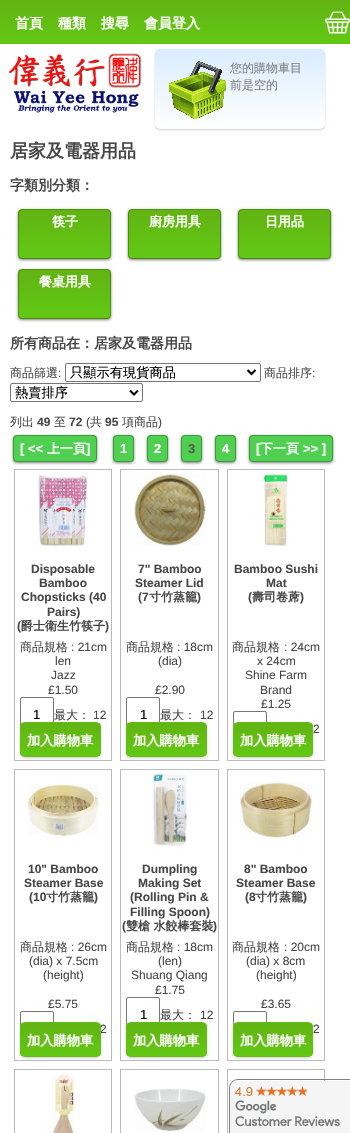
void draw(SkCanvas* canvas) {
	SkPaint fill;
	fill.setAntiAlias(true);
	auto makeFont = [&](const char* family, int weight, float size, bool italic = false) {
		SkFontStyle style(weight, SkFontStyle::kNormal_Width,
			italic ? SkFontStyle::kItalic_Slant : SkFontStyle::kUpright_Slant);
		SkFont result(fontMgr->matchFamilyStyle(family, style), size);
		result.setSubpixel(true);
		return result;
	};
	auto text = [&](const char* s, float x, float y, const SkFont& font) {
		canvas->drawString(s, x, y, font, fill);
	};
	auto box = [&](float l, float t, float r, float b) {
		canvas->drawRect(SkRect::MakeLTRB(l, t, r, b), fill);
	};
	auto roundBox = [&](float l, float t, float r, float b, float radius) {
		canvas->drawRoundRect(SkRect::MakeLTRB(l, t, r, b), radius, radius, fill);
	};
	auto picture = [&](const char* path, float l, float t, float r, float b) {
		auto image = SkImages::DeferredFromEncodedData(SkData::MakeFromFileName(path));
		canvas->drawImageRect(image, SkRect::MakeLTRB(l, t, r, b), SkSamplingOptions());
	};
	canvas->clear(0xFFFFFFFF);
	{
		const SkColor colors[] = {0xFF62B312, 0xFF62C914};
		const float stops[] = {0, 1};
		const SkPoint ends[] = {{175, 0}, {175, 44}};
		fill.setShader(SkGradientShader::MakeLinear(ends, colors, stops, 2, SkTileMode::kClamp));
		fill.setAlpha(255);
	}
	box(0, 0, 350, 44);
	picture("image0.png", 325, 11, 350, 34);
	picture("image1.png", 8, 53, 142, 113);
	fill.setShader(nullptr);
	fill.setColor(0xFFCCCCCC);
	fill.setMaskFilter(SkMaskFilter::MakeBlur(kNormal_SkBlurStyle, 1));
	canvas->drawRoundRect(SkRect::MakeLTRB(155, 50, 325, 130), 5, 5, fill);
	fill.setMaskFilter(nullptr);
	{
		const SkColor colors[] = {0xFFD9ECFF, 0xFFFFFFFF};
		const float stops[] = {0, 1};
		const SkPoint ends[] = {{240, 49}, {240, 129}};
		fill.setShader(SkGradientShader::MakeLinear(ends, colors, stops, 2, SkTileMode::kClamp));
		fill.setAlpha(255);
	}
	roundBox(155, 49, 325, 129, 5);
	picture("image2.png", 169, 61, 226, 119);
	fill.setShader(nullptr);
	fill.setColor(0x80000000);
	fill.setMaskFilter(SkMaskFilter::MakeBlur(kNormal_SkBlurStyle, 1.5f));
	canvas->drawRoundRect(SkRect::MakeLTRB(18, 210, 111, 260), 4, 4, fill);
	fill.setMaskFilter(nullptr);
	canvas->save();
	canvas->clipPath(SkPathBuilder().moveTo(22, 209).lineTo(107, 209).cubicTo(109, 209, 111, 211, 111, 213).lineTo(111, 255).cubicTo(111, 257, 109, 259, 107, 259).lineTo(22, 259).cubicTo(20, 259, 18, 257, 18, 255).lineTo(18, 213).cubicTo(18, 211, 20, 209, 22, 209).close().detach(), true);
	{
		const SkColor colors[] = {0xFF62B312, 0xFF62C914};
		const float stops[] = {0, 1};
		const SkPoint ends[] = {{65, 162}, {65, 210}};
		fill.setShader(SkGradientShader::MakeLinear(ends, colors, stops, 2, SkTileMode::kClamp));
		fill.setAlpha(255);
	}
	box(18, 209, 111, 210);
	{
		const SkColor colors[] = {0xFF62B312, 0xFF62C914};
		const float stops[] = {0, 1};
		const SkPoint ends[] = {{65, 210}, {65, 258}};
		fill.setShader(SkGradientShader::MakeLinear(ends, colors, stops, 2, SkTileMode::kClamp));
		fill.setAlpha(255);
	}
	box(18, 210, 111, 258);
	{
		const SkColor colors[] = {0xFF62B312, 0xFF62C914};
		const float stops[] = {0, 1};
		const SkPoint ends[] = {{65, 258}, {65, 306}};
		fill.setShader(SkGradientShader::MakeLinear(ends, colors, stops, 2, SkTileMode::kClamp));
		fill.setAlpha(255);
	}
	box(18, 258, 111, 259);
	canvas->restore();
	fill.setStyle(SkPaint::kStroke_Style);
	fill.setStrokeWidth(1);
	fill.setShader(nullptr);
	fill.setColor(0x40000000);
	canvas->drawRoundRect(SkRect::MakeLTRB(18.5f, 209.5f, 110.5f, 258.5f), 3.5f, 3.5f, fill);
	fill.setStyle(SkPaint::kFill_Style);
	fill.setColor(0x80000000);
	fill.setMaskFilter(SkMaskFilter::MakeBlur(kNormal_SkBlurStyle, 1.5f));
	canvas->drawRoundRect(SkRect::MakeLTRB(128, 210, 221, 260), 4, 4, fill);
	fill.setMaskFilter(nullptr);
	canvas->save();
	canvas->clipPath(SkPathBuilder().moveTo(132, 209).lineTo(217, 209).cubicTo(219, 209, 221, 211, 221, 213).lineTo(221, 255).cubicTo(221, 257, 219, 259, 217, 259).lineTo(132, 259).cubicTo(130, 259, 128, 257, 128, 255).lineTo(128, 213).cubicTo(128, 211, 130, 209, 132, 209).close().detach(), true);
	{
		const SkColor colors[] = {0xFF62B312, 0xFF62C914};
		const float stops[] = {0, 1};
		const SkPoint ends[] = {{175, 162}, {175, 210}};
		fill.setShader(SkGradientShader::MakeLinear(ends, colors, stops, 2, SkTileMode::kClamp));
		fill.setAlpha(255);
	}
	box(128, 209, 221, 210);
	{
		const SkColor colors[] = {0xFF62B312, 0xFF62C914};
		const float stops[] = {0, 1};
		const SkPoint ends[] = {{175, 210}, {175, 258}};
		fill.setShader(SkGradientShader::MakeLinear(ends, colors, stops, 2, SkTileMode::kClamp));
		fill.setAlpha(255);
	}
	box(128, 210, 221, 258);
	{
		const SkColor colors[] = {0xFF62B312, 0xFF62C914};
		const float stops[] = {0, 1};
		const SkPoint ends[] = {{175, 258}, {175, 306}};
		fill.setShader(SkGradientShader::MakeLinear(ends, colors, stops, 2, SkTileMode::kClamp));
		fill.setAlpha(255);
	}
	box(128, 258, 221, 259);
	canvas->restore();
	fill.setStyle(SkPaint::kStroke_Style);
	fill.setShader(nullptr);
	fill.setColor(0x40000000);
	canvas->drawRoundRect(SkRect::MakeLTRB(128.5f, 209.5f, 220.5f, 258.5f), 3.5f, 3.5f, fill);
	fill.setStyle(SkPaint::kFill_Style);
	fill.setColor(0x80000000);
	fill.setMaskFilter(SkMaskFilter::MakeBlur(kNormal_SkBlurStyle, 1.5f));
	canvas->drawRoundRect(SkRect::MakeLTRB(238, 210, 331, 260), 4, 4, fill);
	fill.setMaskFilter(nullptr);
	canvas->save();
	canvas->clipPath(SkPathBuilder().moveTo(242, 209).lineTo(327, 209).cubicTo(329, 209, 331, 211, 331, 213).lineTo(331, 255).cubicTo(331, 257, 329, 259, 327, 259).lineTo(242, 259).cubicTo(240, 259, 238, 257, 238, 255).lineTo(238, 213).cubicTo(238, 211, 240, 209, 242, 209).close().detach(), true);
	{
		const SkColor colors[] = {0xFF62B312, 0xFF62C914};
		const float stops[] = {0, 1};
		const SkPoint ends[] = {{285, 162}, {285, 210}};
		fill.setShader(SkGradientShader::MakeLinear(ends, colors, stops, 2, SkTileMode::kClamp));
		fill.setAlpha(255);
	}
	box(238, 209, 331, 210);
	{
		const SkColor colors[] = {0xFF62B312, 0xFF62C914};
		const float stops[] = {0, 1};
		const SkPoint ends[] = {{285, 210}, {285, 258}};
		fill.setShader(SkGradientShader::MakeLinear(ends, colors, stops, 2, SkTileMode::kClamp));
		fill.setAlpha(255);
	}
	box(238, 210, 331, 258);
	{
		const SkColor colors[] = {0xFF62B312, 0xFF62C914};
		const float stops[] = {0, 1};
		const SkPoint ends[] = {{285, 258}, {285, 306}};
		fill.setShader(SkGradientShader::MakeLinear(ends, colors, stops, 2, SkTileMode::kClamp));
		fill.setAlpha(255);
	}
	box(238, 258, 331, 259);
	canvas->restore();
	fill.setStyle(SkPaint::kStroke_Style);
	fill.setShader(nullptr);
	fill.setColor(0x40000000);
	canvas->drawRoundRect(SkRect::MakeLTRB(238.5f, 209.5f, 330.5f, 258.5f), 3.5f, 3.5f, fill);
	fill.setStyle(SkPaint::kFill_Style);
	fill.setColor(0x80000000);
	fill.setMaskFilter(SkMaskFilter::MakeBlur(kNormal_SkBlurStyle, 1.5f));
	canvas->drawRoundRect(SkRect::MakeLTRB(18, 270, 111, 320), 4, 4, fill);
	fill.setMaskFilter(nullptr);
	canvas->save();
	canvas->clipPath(SkPathBuilder().moveTo(22, 269).lineTo(107, 269).cubicTo(109, 269, 111, 271, 111, 273).lineTo(111, 315).cubicTo(111, 317, 109, 319, 107, 319).lineTo(22, 319).cubicTo(20, 319, 18, 317, 18, 315).lineTo(18, 273).cubicTo(18, 271, 20, 269, 22, 269).close().detach(), true);
	{
		const SkColor colors[] = {0xFF62B312, 0xFF62C914};
		const float stops[] = {0, 1};
		const SkPoint ends[] = {{65, 222}, {65, 270}};
		fill.setShader(SkGradientShader::MakeLinear(ends, colors, stops, 2, SkTileMode::kClamp));
		fill.setAlpha(255);
	}
	box(18, 269, 111, 270);
	{
		const SkColor colors[] = {0xFF62B312, 0xFF62C914};
		const float stops[] = {0, 1};
		const SkPoint ends[] = {{65, 270}, {65, 318}};
		fill.setShader(SkGradientShader::MakeLinear(ends, colors, stops, 2, SkTileMode::kClamp));
		fill.setAlpha(255);
	}
	box(18, 270, 111, 318);
	{
		const SkColor colors[] = {0xFF62B312, 0xFF62C914};
		const float stops[] = {0, 1};
		const SkPoint ends[] = {{65, 318}, {65, 366}};
		fill.setShader(SkGradientShader::MakeLinear(ends, colors, stops, 2, SkTileMode::kClamp));
		fill.setAlpha(255);
	}
	box(18, 318, 111, 319);
	canvas->restore();
	fill.setStyle(SkPaint::kStroke_Style);
	fill.setShader(nullptr);
	fill.setColor(0x40000000);
	canvas->drawRoundRect(SkRect::MakeLTRB(18.5f, 269.5f, 110.5f, 318.5f), 3.5f, 3.5f, fill);
	fill.setColor(0xFF767676);
	canvas->drawRoundRect(SkRect::MakeLTRB(65.5f, 363.5f, 260.5f, 381.5f), 1.5f, 1.5f, fill);
	fill.setStrokeWidth(2);
	fill.setColor(0xFF000000);
	canvas->drawPath(SkPathBuilder().moveTo(247.5f, 370).lineTo(251.5f, 374).lineTo(255.5f, 370).detach(), fill);
	fill.setStrokeWidth(1);
	fill.setColor(0xFF767676);
	canvas->drawRoundRect(SkRect::MakeLTRB(10.5f, 383.5f, 142.5f, 401.5f), 1.5f, 1.5f, fill);
	fill.setStrokeWidth(2);
	fill.setColor(0xFF000000);
	canvas->drawPath(SkPathBuilder().moveTo(130, 390.5f).lineTo(134, 394.5f).lineTo(138, 390.5f).detach(), fill);
	fill.setStyle(SkPaint::kFill_Style);
	fill.setColor(0x80000000);
	fill.setMaskFilter(SkMaskFilter::MakeBlur(kNormal_SkBlurStyle, 1.5f));
	canvas->drawRoundRect(SkRect::MakeLTRB(13, 436, 97, 463), 4, 4, fill);
	fill.setMaskFilter(nullptr);
	fill.setColor(0xFF50D050);
	roundBox(13, 435, 97, 462, 4);
	fill.setStyle(SkPaint::kStroke_Style);
	fill.setStrokeWidth(1);
	fill.setColor(0x40000000);
	canvas->drawRoundRect(SkRect::MakeLTRB(13.5f, 435.5f, 96.5f, 461.5f), 3.5f, 3.5f, fill);
	fill.setStyle(SkPaint::kFill_Style);
	fill.setColor(0x80000000);
	fill.setMaskFilter(SkMaskFilter::MakeBlur(kNormal_SkBlurStyle, 1.5f));
	canvas->drawRoundRect(SkRect::MakeLTRB(113, 436, 134, 463), 4, 4, fill);
	fill.setMaskFilter(nullptr);
	fill.setColor(0xFF50D050);
	roundBox(113, 435, 134, 462, 4);
	fill.setStyle(SkPaint::kStroke_Style);
	fill.setColor(0x40000000);
	canvas->drawRoundRect(SkRect::MakeLTRB(113.5f, 435.5f, 133.5f, 461.5f), 3.5f, 3.5f, fill);
	fill.setStyle(SkPaint::kFill_Style);
	fill.setColor(0x80000000);
	fill.setMaskFilter(SkMaskFilter::MakeBlur(kNormal_SkBlurStyle, 1.5f));
	canvas->drawRoundRect(SkRect::MakeLTRB(147, 436, 168, 463), 4, 4, fill);
	fill.setMaskFilter(nullptr);
	fill.setColor(0xFF50D050);
	roundBox(147, 435, 168, 462, 4);
	fill.setStyle(SkPaint::kStroke_Style);
	fill.setColor(0x40000000);
	canvas->drawRoundRect(SkRect::MakeLTRB(147.5f, 435.5f, 167.5f, 461.5f), 3.5f, 3.5f, fill);
	fill.setStyle(SkPaint::kFill_Style);
	fill.setColor(0x80000000);
	fill.setMaskFilter(SkMaskFilter::MakeBlur(kNormal_SkBlurStyle, 1.5f));
	canvas->drawRoundRect(SkRect::MakeLTRB(181, 436, 202, 463), 4, 4, fill);
	fill.setMaskFilter(nullptr);
	fill.setColor(0xFF50D050);
	roundBox(181, 435, 202, 462, 4);
	fill.setStyle(SkPaint::kStroke_Style);
	fill.setColor(0x40000000);
	canvas->drawRoundRect(SkRect::MakeLTRB(181.5f, 435.5f, 201.5f, 461.5f), 3.5f, 3.5f, fill);
	fill.setStyle(SkPaint::kFill_Style);
	fill.setColor(0x80000000);
	fill.setMaskFilter(SkMaskFilter::MakeBlur(kNormal_SkBlurStyle, 1.5f));
	canvas->drawRoundRect(SkRect::MakeLTRB(215, 436, 236, 463), 4, 4, fill);
	fill.setMaskFilter(nullptr);
	fill.setColor(0xFF50D050);
	roundBox(215, 435, 236, 462, 4);
	fill.setStyle(SkPaint::kStroke_Style);
	fill.setColor(0x40000000);
	canvas->drawRoundRect(SkRect::MakeLTRB(215.5f, 435.5f, 235.5f, 461.5f), 3.5f, 3.5f, fill);
	fill.setStyle(SkPaint::kFill_Style);
	fill.setColor(0x80000000);
	fill.setMaskFilter(SkMaskFilter::MakeBlur(kNormal_SkBlurStyle, 1.5f));
	canvas->drawRoundRect(SkRect::MakeLTRB(249, 436, 333, 463), 4, 4, fill);
	fill.setMaskFilter(nullptr);
	fill.setColor(0xFF50D050);
	roundBox(249, 435, 333, 462, 4);
	fill.setStyle(SkPaint::kStroke_Style);
	fill.setColor(0x40000000);
	canvas->drawRoundRect(SkRect::MakeLTRB(249.5f, 435.5f, 332.5f, 461.5f), 3.5f, 3.5f, fill);
	fill.setColor(0xFFBBBBBB);
	canvas->drawRect(SkRect::MakeLTRB(14.5f, 469.5f, 111.5f, 760.5f), fill);
	picture("image3.png", 38, 474, 88, 546);
	fill.setColor(0xFF767676);
	canvas->drawRoundRect(SkRect::MakeLTRB(20.5f, 697.5f, 53.5f, 730.5f), 1.5f, 1.5f, fill);
	fill.setStyle(SkPaint::kFill_Style);
	fill.setColor(0xFFCCCCCC);
	fill.setMaskFilter(SkMaskFilter::MakeBlur(kNormal_SkBlurStyle, 1.5f));
	canvas->drawRoundRect(SkRect::MakeLTRB(20, 723, 101, 758), 5, 5, fill);
	fill.setMaskFilter(nullptr);
	canvas->save();
	canvas->clipPath(SkPathBuilder().moveTo(25, 722).lineTo(96, 722).cubicTo(99, 722, 101, 724, 101, 727).lineTo(101, 752).cubicTo(101, 755, 99, 757, 96, 757).lineTo(25, 757).cubicTo(22, 757, 20, 755, 20, 752).lineTo(20, 727).cubicTo(20, 724, 22, 722, 25, 722).close().detach(), true);
	{
		const SkColor colors[] = {0xFF62B312, 0xFF62C914};
		const float stops[] = {0, 1};
		const SkPoint ends[] = {{61, 723}, {61, 756}};
		fill.setShader(SkGradientShader::MakeLinear(ends, colors, stops, 2, SkTileMode::kClamp));
		fill.setAlpha(255);
	}
	box(20, 723, 101, 756);
	canvas->restore();
	fill.setStyle(SkPaint::kStroke_Style);
	fill.setShader(nullptr);
	fill.setColor(0xFF64BE13);
	canvas->drawRoundRect(SkRect::MakeLTRB(20.5f, 722.5f, 100.5f, 756.5f), 4.5f, 4.5f, fill);
	fill.setColor(0xFFBBBBBB);
	canvas->drawRect(SkRect::MakeLTRB(120.5f, 469.5f, 218.5f, 760.5f), fill);
	picture("image4.png", 134, 471, 206, 546);
	fill.setColor(0xFF767676);
	canvas->drawRoundRect(SkRect::MakeLTRB(126.5f, 697.5f, 159.5f, 730.5f), 1.5f, 1.5f, fill);
	fill.setStyle(SkPaint::kFill_Style);
	fill.setColor(0xFFCCCCCC);
	fill.setMaskFilter(SkMaskFilter::MakeBlur(kNormal_SkBlurStyle, 1.5f));
	canvas->drawRoundRect(SkRect::MakeLTRB(126, 723, 207, 758), 5, 5, fill);
	fill.setMaskFilter(nullptr);
	canvas->save();
	canvas->clipPath(SkPathBuilder().moveTo(131, 722).lineTo(202, 722).cubicTo(205, 722, 207, 724, 207, 727).lineTo(207, 752).cubicTo(207, 755, 205, 757, 202, 757).lineTo(131, 757).cubicTo(128, 757, 126, 755, 126, 752).lineTo(126, 727).cubicTo(126, 724, 128, 722, 131, 722).close().detach(), true);
	{
		const SkColor colors[] = {0xFF62B312, 0xFF62C914};
		const float stops[] = {0, 1};
		const SkPoint ends[] = {{167, 723}, {167, 756}};
		fill.setShader(SkGradientShader::MakeLinear(ends, colors, stops, 2, SkTileMode::kClamp));
		fill.setAlpha(255);
	}
	box(126, 723, 207, 756);
	canvas->restore();
	fill.setStyle(SkPaint::kStroke_Style);
	fill.setShader(nullptr);
	fill.setColor(0xFF64BE13);
	canvas->drawRoundRect(SkRect::MakeLTRB(126.5f, 722.5f, 206.5f, 756.5f), 4.5f, 4.5f, fill);
	fill.setColor(0xFFBBBBBB);
	canvas->drawRect(SkRect::MakeLTRB(227.5f, 469.5f, 324.5f, 760.5f), fill);
	picture("image5.png", 263, 474, 288, 546);
	fill.setColor(0xFF767676);
	canvas->drawRoundRect(SkRect::MakeLTRB(233.5f, 711.5f, 266.5f, 744.5f), 1.5f, 1.5f, fill);
	fill.setStyle(SkPaint::kFill_Style);
	fill.setColor(0xFFCCCCCC);
	fill.setMaskFilter(SkMaskFilter::MakeBlur(kNormal_SkBlurStyle, 1.5f));
	canvas->drawRoundRect(SkRect::MakeLTRB(233, 723, 313, 758), 5, 5, fill);
	fill.setMaskFilter(nullptr);
	canvas->save();
	canvas->clipPath(SkPathBuilder().moveTo(238, 722).lineTo(308, 722).cubicTo(311, 722, 313, 724, 313, 727).lineTo(313, 752).cubicTo(313, 755, 311, 757, 308, 757).lineTo(238, 757).cubicTo(235, 757, 233, 755, 233, 752).lineTo(233, 727).cubicTo(233, 724, 235, 722, 238, 722).close().detach(), true);
	{
		const SkColor colors[] = {0xFF62B312, 0xFF62C914};
		const float stops[] = {0, 1};
		const SkPoint ends[] = {{273, 723}, {273, 756}};
		fill.setShader(SkGradientShader::MakeLinear(ends, colors, stops, 2, SkTileMode::kClamp));
		fill.setAlpha(255);
	}
	box(233, 723, 313, 756);
	canvas->restore();
	fill.setStyle(SkPaint::kStroke_Style);
	fill.setShader(nullptr);
	fill.setColor(0xFF64BE13);
	canvas->drawRoundRect(SkRect::MakeLTRB(233.5f, 722.5f, 312.5f, 756.5f), 4.5f, 4.5f, fill);
	fill.setColor(0xFFBBBBBB);
	canvas->drawRect(SkRect::MakeLTRB(14.5f, 769.5f, 111.5f, 1060.5f), fill);
	picture("image6.png", 27, 784, 99, 836);
	fill.setColor(0xFF767676);
	canvas->drawRoundRect(SkRect::MakeLTRB(20.5f, 1011.5f, 53.5f, 1044.5f), 1.5f, 1.5f, fill);
	fill.setStyle(SkPaint::kFill_Style);
	fill.setColor(0xFFCCCCCC);
	fill.setMaskFilter(SkMaskFilter::MakeBlur(kNormal_SkBlurStyle, 1.5f));
	canvas->drawRoundRect(SkRect::MakeLTRB(20, 1023, 101, 1058), 5, 5, fill);
	fill.setMaskFilter(nullptr);
	fill.setStyle(SkPaint::kStroke_Style);
	fill.setColor(0xFFBBBBBB);
	canvas->drawRect(SkRect::MakeLTRB(120.5f, 769.5f, 218.5f, 1060.5f), fill);
	picture("image7.png", 152, 774, 188, 846);
	fill.setColor(0xFF767676);
	canvas->drawRoundRect(SkRect::MakeLTRB(126.5f, 997.5f, 159.5f, 1030.5f), 1.5f, 1.5f, fill);
	fill.setStyle(SkPaint::kFill_Style);
	fill.setColor(0xFFCCCCCC);
	fill.setMaskFilter(SkMaskFilter::MakeBlur(kNormal_SkBlurStyle, 1.5f));
	canvas->drawRoundRect(SkRect::MakeLTRB(126, 1023, 207, 1058), 5, 5, fill);
	fill.setMaskFilter(nullptr);
	canvas->save();
	canvas->clipPath(SkPathBuilder().moveTo(131, 1022).lineTo(202, 1022).cubicTo(205, 1022, 207, 1024, 207, 1027).lineTo(207, 1052).cubicTo(207, 1055, 205, 1057, 202, 1057).lineTo(131, 1057).cubicTo(128, 1057, 126, 1055, 126, 1052).lineTo(126, 1027).cubicTo(126, 1024, 128, 1022, 131, 1022).close().detach(), true);
	{
		const SkColor colors[] = {0xFF62B312, 0xFF62C914};
		const float stops[] = {0, 1};
		const SkPoint ends[] = {{167, 1023}, {167, 1056}};
		fill.setShader(SkGradientShader::MakeLinear(ends, colors, stops, 2, SkTileMode::kClamp));
		fill.setAlpha(255);
	}
	box(126, 1023, 207, 1056);
	canvas->restore();
	fill.setStyle(SkPaint::kStroke_Style);
	fill.setShader(nullptr);
	fill.setColor(0xFF64BE13);
	canvas->drawRoundRect(SkRect::MakeLTRB(126.5f, 1022.5f, 206.5f, 1056.5f), 4.5f, 4.5f, fill);
	fill.setColor(0xFFBBBBBB);
	canvas->drawRect(SkRect::MakeLTRB(227.5f, 769.5f, 324.5f, 1060.5f), fill);
	picture("image8.png", 238, 780, 313, 841);
	fill.setColor(0xFF767676);
	canvas->drawRoundRect(SkRect::MakeLTRB(233.5f, 1011.5f, 266.5f, 1044.5f), 1.5f, 1.5f, fill);
	fill.setStyle(SkPaint::kFill_Style);
	fill.setColor(0xFFCCCCCC);
	fill.setMaskFilter(SkMaskFilter::MakeBlur(kNormal_SkBlurStyle, 1.5f));
	canvas->drawRoundRect(SkRect::MakeLTRB(233, 1023, 313, 1058), 5, 5, fill);
	fill.setMaskFilter(nullptr);
	canvas->save();
	canvas->clipPath(SkPathBuilder().moveTo(238, 1022).lineTo(308, 1022).cubicTo(311, 1022, 313, 1024, 313, 1027).lineTo(313, 1052).cubicTo(313, 1055, 311, 1057, 308, 1057).lineTo(238, 1057).cubicTo(235, 1057, 233, 1055, 233, 1052).lineTo(233, 1027).cubicTo(233, 1024, 235, 1022, 238, 1022).close().detach(), true);
	{
		const SkColor colors[] = {0xFF62B312, 0xFF62C914};
		const float stops[] = {0, 1};
		const SkPoint ends[] = {{273, 1023}, {273, 1056}};
		fill.setShader(SkGradientShader::MakeLinear(ends, colors, stops, 2, SkTileMode::kClamp));
		fill.setAlpha(255);
	}
	box(233, 1023, 313, 1056);
	canvas->restore();
	fill.setStyle(SkPaint::kStroke_Style);
	fill.setShader(nullptr);
	fill.setColor(0xFF64BE13);
	canvas->drawRoundRect(SkRect::MakeLTRB(233.5f, 1022.5f, 312.5f, 1056.5f), 4.5f, 4.5f, fill);
	fill.setColor(0xFFBBBBBB);
	canvas->drawRect(SkRect::MakeLTRB(14.5f, 1069.5f, 111.5f, 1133.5f), fill);
	picture("image9.png", 52, 1074, 74, 1133);
	canvas->drawRect(SkRect::MakeLTRB(120.5f, 1069.5f, 218.5f, 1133.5f), fill);
	picture("image10.png", 134, 1088, 206, 1131);
	canvas->drawRect(SkRect::MakeLTRB(227.5f, 1069.5f, 324.5f, 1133.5f), fill);
	picture("image11.png", 229, 1081, 350, 1133);
	fill.setColor(0xFF808080);
	canvas->drawPath(SkPathBuilder().moveTo(238, 1079.5f).lineTo(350.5f, 1079.5f).lineTo(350.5f, 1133.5f).lineTo(229.5f, 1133.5f).lineTo(229.5f, 1088).cubicTo(229.5f, 1083.5f, 233.5f, 1079.5f, 238, 1079.5f).close().detach(), fill);
	auto font1 = makeFont("WenQuanYi Zen Hei", 700, 14);
	fill.setStyle(SkPaint::kFill_Style);
	fill.setColor(0xFFFFFFFF);
	text("首頁", 15, 28, font1);
	text("種類", 58, 28, font1);
	text("搜尋", 101, 28, font1);
	text("會員登入", 144, 28, font1);
	auto font2 = makeFont("WenQuanYi Zen Hei", 500, 12);
	fill.setColor(0xFF808080);
	text("您的購物車目", 230, 72, font2);
	text("前是空的", 230, 89, font2);
	auto font3 = makeFont("WenQuanYi Zen Hei", 700, 18);
	fill.setColor(0xFF474747);
	text("居家及電器用品", 10, 157, font3);
	text("字類別分類：", 10, 190, font1);
	auto font4 = makeFont("WenQuanYi Zen Hei", 700, 13);
	fill.setColor(0xFFFFFFFF);
	text("筷子", 52, 226, font4);
	text("廚房用具", 149, 226, font4);
	text("日用品", 265, 226, font4);
	text("餐桌用具", 39, 286, font4);
	fill.setColor(0xFF474747);
	text("所有商品在：居家及電器用品", 10, 348, font1);
	text("商品篩選", 10, 377, font2);
	auto font5 = makeFont("Liberation Sans", 400, 12);
	text(":", 58, 377, font5);
	auto font6 = makeFont("WenQuanYi Zen Hei", 500, 13.25f);
	fill.setColor(0xFF000000);
	text("只顯示有現貨商品", 70, 377, font6);
	fill.setColor(0xFF474747);
	text("商品排序", 264, 377, font2);
	text(":", 312, 377, font5);
	fill.setColor(0xFF000000);
	text("熱賣排序", 15, 397, font6);
	fill.setColor(0xFF474747);
	text("列出", 10, 426, font2);
	auto font7 = makeFont("Liberation Sans", 700, 12);
	text("49", 37, 426, font7);
	text("至", 54, 426, font2);
	text("72", 69, 426, font7);
	text("(", 86, 426, font5);
	text("共", 90, 426, font2);
	text("95", 105, 426, font7);
	text("項商品", 122, 426, font2);
	text(")", 158, 426, font5);
	auto font8 = makeFont("Liberation Sans", 700, 13);
	fill.setColor(0xFFFFFFFF);
	text("[ <<", 20, 453, font8);
	text("上一頁", 47, 453, font4);
	text("]", 86, 453, font8);
	text("1", 120, 453, font8);
	text("2", 154, 453, font8);
	fill.setColor(0xFF5C5858);
	text("3", 188, 453, font8);
	fill.setColor(0xFFFFFFFF);
	text("4", 222, 453, font8);
	text("[", 256, 453, font8);
	text("下一頁", 260, 453, font4);
	text(">> ]", 303, 453, font8);
	fill.setColor(0xFF474747);
	text("Disposable", 31, 573, font7);
	text("Bamboo", 39, 587, font7);
	text("Chopsticks (40", 21, 601, font7);
	text("Pairs)", 47, 616, font7);
	text("(", 17, 630, font7);
	auto font9 = makeFont("WenQuanYi Zen Hei", 700, 12);
	text("爵士衛生竹筷子", 21, 630, font9);
	text(")", 105, 630, font7);
	text("商品規格", 20, 651, font2);
	text(": 21cm", 71, 651, font5);
	text("len", 55, 665, font5);
	text("Jazz", 51, 679, font5);
	text("£1.50", 48, 694, font5);
	auto font10 = makeFont("Liberation Sans", 400, 13.25f);
	fill.setColor(0xFF000000);
	text("1", 33, 719, font10);
	fill.setColor(0xFF474747);
	text("最大：", 54, 719, font2);
	text("12", 93, 719, font5);
	auto font11 = makeFont("WenQuanYi Zen Hei", 700, 13.25f);
	fill.setColor(0xFFFFFFFF);
	text("加入購物車", 27, 745, font11);
	fill.setColor(0xFF474747);
	text("7\" Bamboo", 138, 573, font7);
	text("Steamer Lid", 135, 587, font7);
	text("(7", 138, 601, font7);
	text("寸竹蒸籠", 149, 601, font9);
	text(")", 197, 601, font7);
	text("商品規格", 126, 651, font2);
	text(": 18cm", 177, 651, font5);
	text("(dia)", 158, 665, font5);
	text("£2.90", 155, 694, font5);
	fill.setColor(0xFF000000);
	text("1", 140, 719, font10);
	fill.setColor(0xFF474747);
	text("最大：", 160, 719, font2);
	text("12", 200, 719, font5);
	fill.setColor(0xFFFFFFFF);
	text("加入購物車", 133, 745, font11);
	fill.setColor(0xFF474747);
	text("Bamboo Sushi", 234, 573, font7);
	text("Mat", 266, 587, font7);
	text("(", 248, 601, font7);
	text("壽司卷蓆", 252, 601, font9);
	text(")", 300, 601, font7);
	text("商品規格", 232, 651, font2);
	text(": 24cm", 284, 651, font5);
	text("x 24cm", 257, 665, font5);
	text("Shine Farm", 245, 679, font5);
	text("Brand", 260, 694, font5);
	text("£1.25", 261, 708, font5);
	text("2", 313, 733, font5);
	fill.setColor(0xFFFFFFFF);
	text("加入購物車", 240, 745, font11);
	fill.setColor(0xFF474747);
	text("10\" Bamboo", 28, 873, font7);
	text("Steamer Base", 24, 887, font7);
	text("(10", 29, 901, font7);
	text("寸竹蒸籠", 46, 901, font9);
	text(")", 94, 901, font7);
	text("商品規格", 20, 951, font2);
	text(": 26cm", 71, 951, font5);
	text("(dia) x 7.5cm", 29, 965, font5);
	text("(height)", 43, 979, font5);
	text("£5.75", 48, 1008, font5);
	text("2", 100, 1033, font5);
	canvas->save();
	canvas->clipPath(SkPathBuilder().moveTo(25, 1022).lineTo(96, 1022).cubicTo(99, 1022, 101, 1024, 101, 1027).lineTo(101, 1052).cubicTo(101, 1055, 99, 1057, 96, 1057).lineTo(25, 1057).cubicTo(22, 1057, 20, 1055, 20, 1052).lineTo(20, 1027).cubicTo(20, 1024, 22, 1022, 25, 1022).close().detach(), true);
	{
		const SkColor colors[] = {0xFF62B312, 0xFF62C914};
		const float stops[] = {0, 1};
		const SkPoint ends[] = {{61, 1023}, {61, 1056}};
		fill.setShader(SkGradientShader::MakeLinear(ends, colors, stops, 2, SkTileMode::kClamp));
		fill.setAlpha(255);
	}
	box(20, 1023, 101, 1056);
	canvas->restore();
	fill.setStyle(SkPaint::kStroke_Style);
	fill.setShader(nullptr);
	fill.setColor(0xFF64BE13);
	canvas->drawRoundRect(SkRect::MakeLTRB(20.5f, 1022.5f, 100.5f, 1056.5f), 4.5f, 4.5f, fill);
	fill.setStyle(SkPaint::kFill_Style);
	fill.setColor(0xFFFFFFFF);
	text("加入購物車", 27, 1045, font11);
	fill.setColor(0xFF474747);
	text("Dumpling", 142, 873, font7);
	text("Making Set", 138, 887, font7);
	text("(Rolling Pin &", 130, 901, font7);
	text("Filling Spoon)", 130, 916, font7);
	text("(", 122, 930, font7);
	text("雙槍 水餃棒套裝", 126, 930, font9);
	text(")", 213, 930, font7);
	text("商品規格", 126, 951, font2);
	text(": 18cm", 177, 951, font5);
	text("(len)", 158, 965, font5);
	text("Shuang Qiang", 131, 979, font5);
	text("£1.75", 155, 994, font5);
	fill.setColor(0xFF000000);
	text("1", 140, 1019, font10);
	fill.setColor(0xFF474747);
	text("最大：", 160, 1019, font2);
	text("12", 200, 1019, font5);
	fill.setColor(0xFFFFFFFF);
	text("加入購物車", 133, 1045, font11);
	fill.setColor(0xFF474747);
	text("8\" Bamboo", 244, 873, font7);
	text("Steamer Base", 236, 887, font7);
	text("(8", 245, 901, font7);
	text("寸竹蒸籠", 255, 901, font9);
	text(")", 303, 901, font7);
	text("商品規格", 232, 951, font2);
	text(": 20cm", 284, 951, font5);
	text("(dia) x 8cm", 246, 965, font5);
	text("(height)", 256, 979, font5);
	text("£3.65", 261, 1008, font5);
	text("2", 313, 1033, font5);
	fill.setColor(0xFFFFFFFF);
	text("加入購物車", 240, 1045, font11);
}
